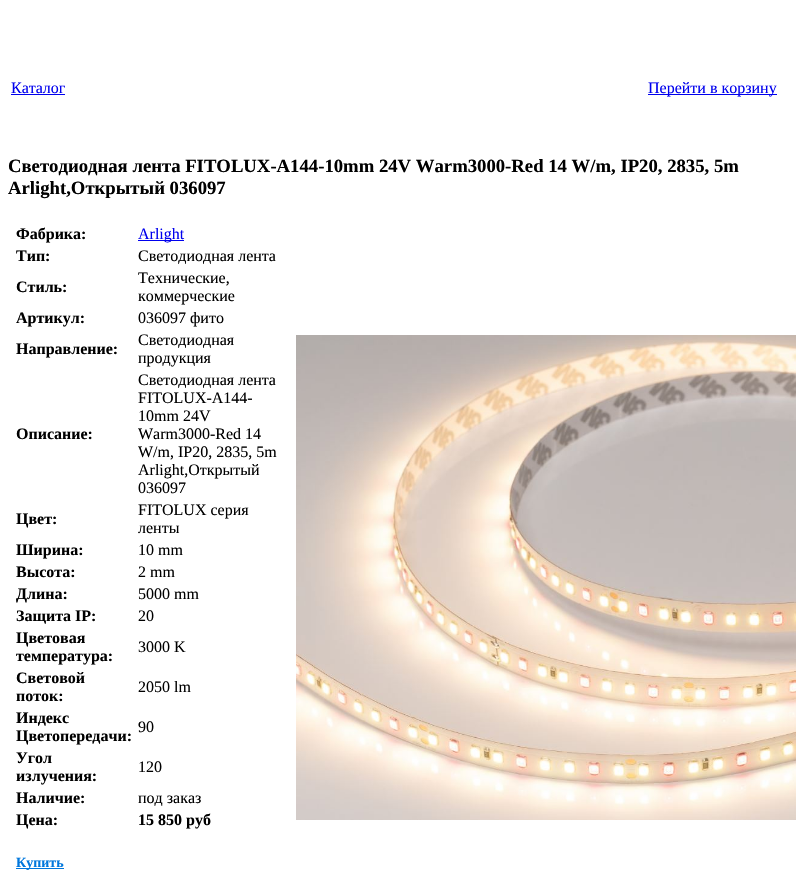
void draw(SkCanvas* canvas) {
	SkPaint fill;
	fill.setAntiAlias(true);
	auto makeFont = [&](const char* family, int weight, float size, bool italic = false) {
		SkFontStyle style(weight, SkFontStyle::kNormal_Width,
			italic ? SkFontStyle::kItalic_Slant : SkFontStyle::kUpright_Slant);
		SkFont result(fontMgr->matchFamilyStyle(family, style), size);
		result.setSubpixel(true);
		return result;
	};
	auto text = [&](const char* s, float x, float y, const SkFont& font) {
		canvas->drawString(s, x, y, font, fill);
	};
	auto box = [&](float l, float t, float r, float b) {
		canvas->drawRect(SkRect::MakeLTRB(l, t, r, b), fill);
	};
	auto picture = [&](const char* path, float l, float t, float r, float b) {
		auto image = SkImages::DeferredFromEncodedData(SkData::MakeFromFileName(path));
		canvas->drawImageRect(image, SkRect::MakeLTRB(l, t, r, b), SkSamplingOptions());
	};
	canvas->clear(0xFFFFFFFF);
	fill.setColor(0xFF0000EE);
	box(11, 94, 65, 95);
	box(648, 94, 777, 95);
	box(138, 240, 184, 241);
	fill.setColor(0xFF0077DD);
	box(16, 868, 64, 869);
	picture("image0.png", 296, 335, 796, 820);
	auto font1 = makeFont("Liberation Serif", 400, 16);
	fill.setColor(0xFF0000EE);
	text("Каталог", 11, 93, font1);
	text("Перейти в корзину", 648, 93, font1);
	auto font2 = makeFont("Liberation Serif", 700, 18.7f);
	fill.setColor(0xFF000000);
	text("Светодиодная лента FITOLUX-A144-10mm 24V Warm3000-Red 14 W/m, IP20, 2835, 5m", 8, 172, font2);
	text("Arlight,Открытый 036097", 8, 194, font2);
	auto font3 = makeFont("Liberation Serif", 700, 16);
	text("Фабрика:", 16, 239, font3);
	fill.setColor(0xFF0000EE);
	text("Arlight", 138, 239, font1);
	fill.setColor(0xFF000000);
	text("Тип:", 16, 261, font3);
	text("Светодиодная лента", 138, 261, font1);
	text("Стиль:", 16, 292, font3);
	text("Технические,", 138, 283, font1);
	text("коммерческие", 138, 301, font1);
	text("Артикул:", 16, 323, font3);
	text("036097 фито", 138, 323, font1);
	text("Направление:", 16, 354, font3);
	text("Светодиодная", 138, 345, font1);
	text("продукция", 138, 363, font1);
	text("Описание:", 16, 439, font3);
	text("Светодиодная лента", 138, 385, font1);
	text("FITOLUX-A144-", 138, 403, font1);
	text("10mm 24V", 138, 421, font1);
	text("Warm3000-Red 14", 138, 439, font1);
	text("W/m, IP20, 2835, 5m", 138, 457, font1);
	text("Arlight,Открытый", 138, 475, font1);
	text("036097", 138, 493, font1);
	text("Цвет:", 16, 524, font3);
	text("FITOLUX серия", 138, 515, font1);
	text("ленты", 138, 533, font1);
	text("Ширина:", 16, 555, font3);
	text("10 mm", 138, 555, font1);
	text("Высота:", 16, 577, font3);
	text("2 mm", 138, 577, font1);
	text("Длина:", 16, 599, font3);
	text("5000 mm", 138, 599, font1);
	text("Защита IP:", 16, 621, font3);
	text("20", 138, 621, font1);
	text("Цветовая", 16, 643, font3);
	text("температура:", 16, 661, font3);
	text("3000 K", 138, 652, font1);
	text("Световой", 16, 683, font3);
	text("поток:", 16, 701, font3);
	text("2050 lm", 138, 692, font1);
	text("Индекс", 16, 723, font3);
	text("Цветопередачи:", 16, 741, font3);
	text("90", 138, 732, font1);
	text("Угол", 16, 763, font3);
	text("излучения:", 16, 781, font3);
	text("120", 138, 772, font1);
	text("Наличие:", 16, 803, font3);
	text("под заказ", 138, 803, font1);
	text("Цена:", 16, 825, font3);
	text("15 850 руб", 138, 825, font3);
	auto font4 = makeFont("Liberation Serif", 700, 14);
	fill.setColor(0xFF0077DD);
	text("Купить", 16, 867, font4);
}
